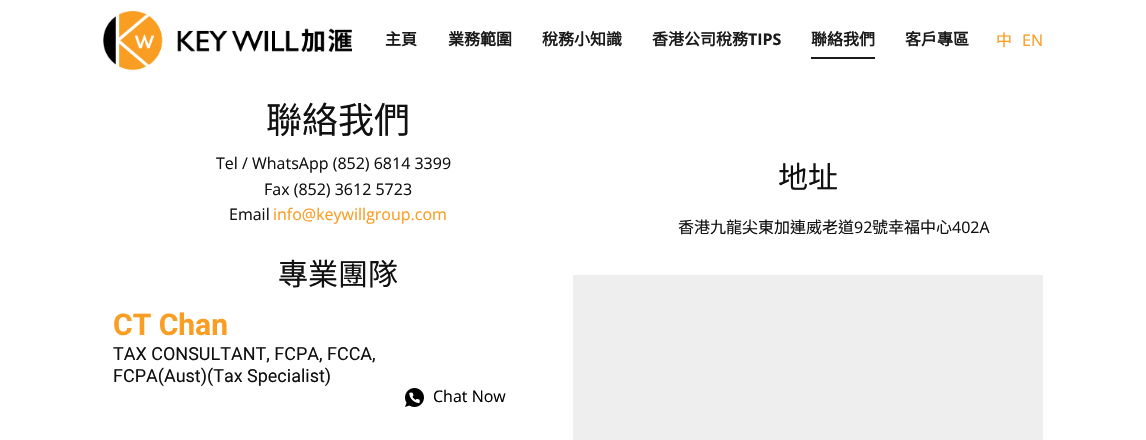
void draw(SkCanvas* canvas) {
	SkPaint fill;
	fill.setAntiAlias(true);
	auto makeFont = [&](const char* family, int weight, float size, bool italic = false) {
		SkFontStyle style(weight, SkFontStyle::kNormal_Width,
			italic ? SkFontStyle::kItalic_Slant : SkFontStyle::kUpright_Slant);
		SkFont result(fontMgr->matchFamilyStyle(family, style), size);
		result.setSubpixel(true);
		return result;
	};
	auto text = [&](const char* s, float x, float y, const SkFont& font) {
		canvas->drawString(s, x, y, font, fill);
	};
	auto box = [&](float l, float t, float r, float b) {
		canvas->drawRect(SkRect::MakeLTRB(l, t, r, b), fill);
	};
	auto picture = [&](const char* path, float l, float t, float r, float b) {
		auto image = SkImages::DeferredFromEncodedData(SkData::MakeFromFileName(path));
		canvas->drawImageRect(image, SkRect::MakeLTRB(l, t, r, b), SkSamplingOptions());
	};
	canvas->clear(0xFFFFFFFF);
	picture("image0.png", 103, 11, 352, 71);
	fill.setColor(0xFF1A1A1A);
	box(811, 57, 875, 59);
	picture("image1.png", 405, 388, 424, 407);
	fill.setColor(0xFFEEEEEE);
	box(573, 275, 1043, 440);
	auto font1 = makeFont("Noto Sans CJK HK", 700, 16);
	fill.setColor(0xFF1A1A1A);
	text("主頁", 385, 45, font1);
	text("業務範圍", 448, 45, font1);
	text("稅務小知識", 542, 45, font1);
	text("香港公司稅務", 652, 45, font1);
	auto font2 = makeFont("Open Sans", 700, 16);
	text("TIPS", 748, 45, font2);
	text("聯絡我們", 811, 45, font1);
	text("客戶專區", 905, 45, font1);
	auto font3 = makeFont("Noto Sans CJK HK", 400, 16);
	fill.setColor(0xFFF99D23);
	text("中", 996, 46, font3);
	auto font4 = makeFont("Open Sans", 400, 16);
	text("EN", 1022, 46, font4);
	auto font5 = makeFont("Noto Sans CJK HK", 400, 36);
	fill.setColor(0xFF111111);
	text("聯絡我們", 266, 133, font5);
	text("Tel / WhatsApp (852) 6814 3399", 216, 169, font4);
	text("Fax (852) 3612 5723", 264, 195, font4);
	text("Email", 229, 220, font4);
	fill.setColor(0xFFF99D23);
	text("info@keywillgroup.com", 273, 220, font4);
	auto font6 = makeFont("Noto Sans CJK HK", 400, 30);
	fill.setColor(0xFF111111);
	text("專業團隊", 278, 285, font6);
	auto font7 = makeFont("Roboto", 700, 30);
	fill.setColor(0xFFF99D23);
	text("CT Chan", 113, 335, font7);
	auto font8 = makeFont("Roboto", 400, 18);
	fill.setColor(0xFF111111);
	text("TAX CONSULTANT, FCPA, FCCA,", 113, 360, font8);
	text("FCPA(Aust)(Tax Specialist)", 113, 382, font8);
	fill.setColor(0xFF000000);
	text("Chat Now", 433, 402, font4);
	fill.setColor(0xFF111111);
	text("地址", 778, 188, font6);
	text("香港九龍尖東加連威老道", 678, 233, font3);
	text("92", 854, 233, font4);
	text("號幸福中心", 872, 233, font3);
	text("402A", 952, 233, font4);
}
